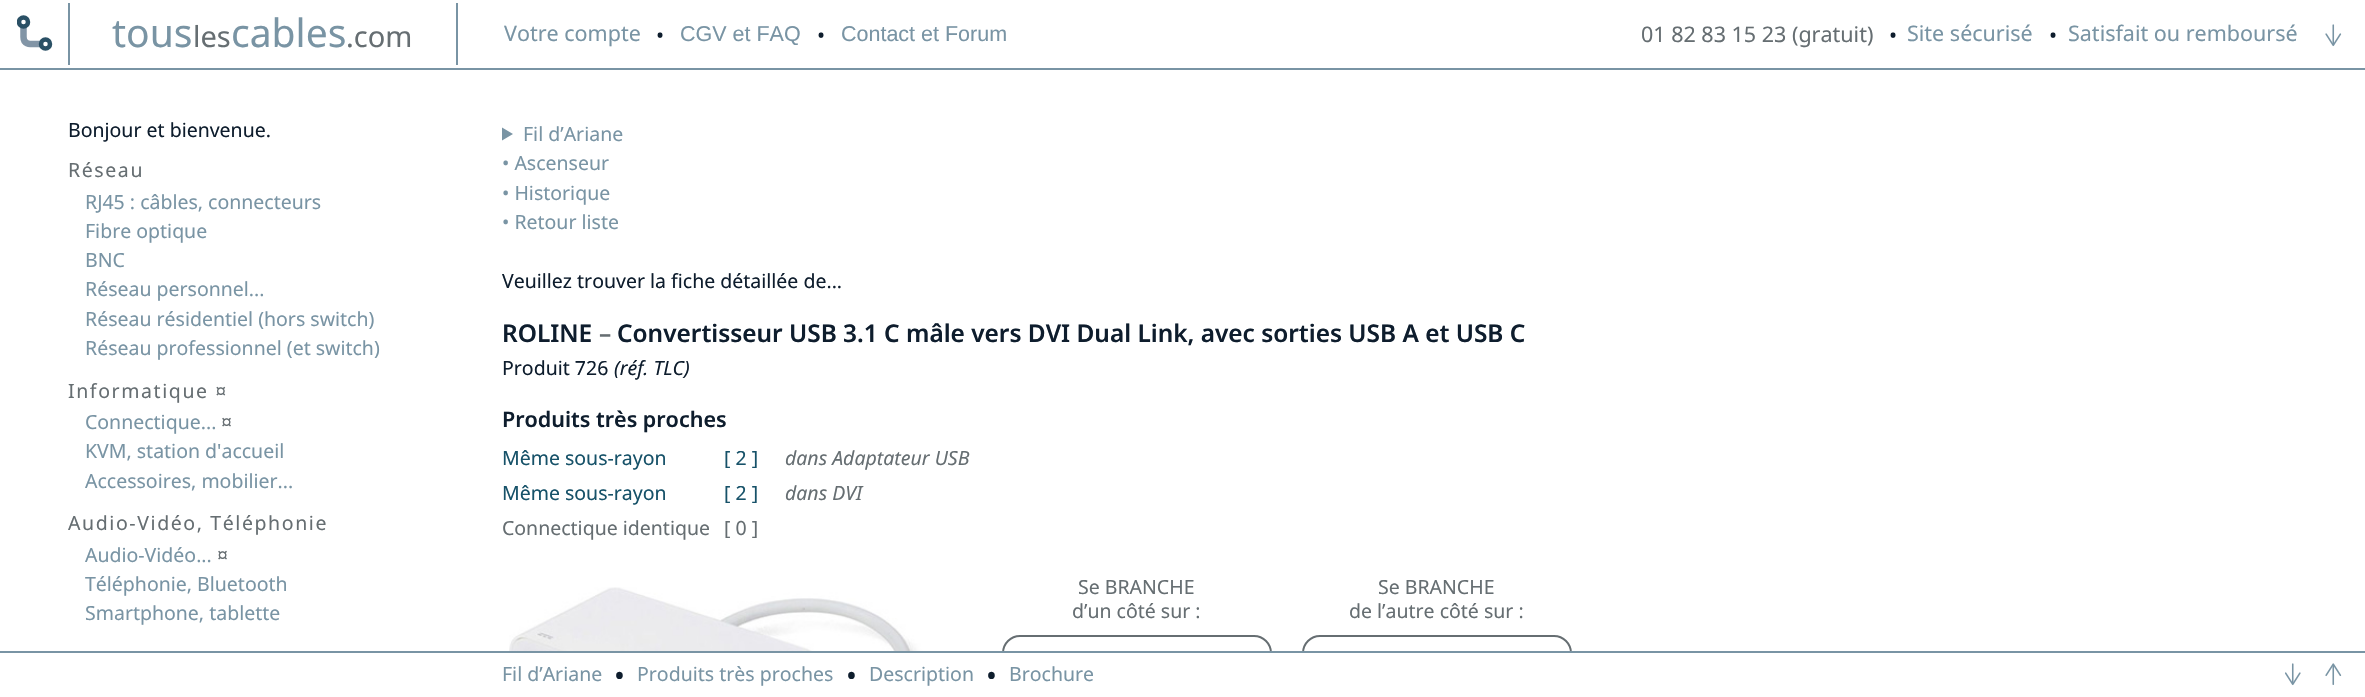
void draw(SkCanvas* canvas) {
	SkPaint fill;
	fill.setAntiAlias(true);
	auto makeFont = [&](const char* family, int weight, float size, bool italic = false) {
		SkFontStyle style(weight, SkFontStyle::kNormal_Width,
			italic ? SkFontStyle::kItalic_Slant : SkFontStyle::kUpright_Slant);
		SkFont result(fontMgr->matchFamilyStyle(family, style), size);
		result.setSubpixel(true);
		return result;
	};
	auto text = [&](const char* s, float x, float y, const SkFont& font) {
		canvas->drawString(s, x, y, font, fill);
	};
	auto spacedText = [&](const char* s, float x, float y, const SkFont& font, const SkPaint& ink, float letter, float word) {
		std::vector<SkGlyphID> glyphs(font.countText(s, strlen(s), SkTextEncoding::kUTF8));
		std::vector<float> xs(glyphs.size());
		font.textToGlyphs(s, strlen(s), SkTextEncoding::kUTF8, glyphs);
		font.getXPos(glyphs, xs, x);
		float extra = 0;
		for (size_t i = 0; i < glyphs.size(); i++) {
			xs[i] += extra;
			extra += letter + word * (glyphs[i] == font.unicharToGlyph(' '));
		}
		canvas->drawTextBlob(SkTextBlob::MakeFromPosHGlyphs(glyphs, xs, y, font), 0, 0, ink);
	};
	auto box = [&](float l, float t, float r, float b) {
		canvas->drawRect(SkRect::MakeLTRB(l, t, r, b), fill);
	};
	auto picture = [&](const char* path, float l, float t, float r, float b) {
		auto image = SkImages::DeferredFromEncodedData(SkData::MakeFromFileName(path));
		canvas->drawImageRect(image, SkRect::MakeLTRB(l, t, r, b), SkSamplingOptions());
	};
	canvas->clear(0xFFFFFFFF);
	fill.setColor(0xFF7994A4);
	box(0, 68, 2365, 70);
	fill.setStyle(SkPaint::kStroke_Style);
	fill.setStrokeWidth(6.5f);
	fill.setColor(0xFF8295A6);
	canvas->drawPath(SkPathBuilder().moveTo(40.5f, 44).lineTo(30.5f, 44).cubicTo(30.5f, 44, 23.5f, 44.5f, 23.5f, 37).lineTo(23.5f, 27.5f).detach(), fill);
	canvas->save();
	canvas->clipRect(SkRect::MakeLTRB(17, 15, 53, 51));
	fill.setStrokeWidth(4.5f);
	fill.setColor(0xFF2A5065);
	canvas->drawCircle(23.5f, 22, 4.5f, fill);
	canvas->restore();
	canvas->drawCircle(45.5f, 44, 4.5f, fill);
	fill.setStyle(SkPaint::kFill_Style);
	fill.setColor(0xFF7994A4);
	box(456, 3, 458, 65);
	box(68, 3, 70, 65);
	picture("image0.png", 2325, 24, 2342, 47);
	canvas->drawPath(SkPathBuilder().moveTo(502, 127.5f).lineTo(513, 134).lineTo(502, 140.5f).close().detach(), fill);
	picture("image1.png", 509, 587, 923, 651);
	fill.setStyle(SkPaint::kStroke_Style);
	fill.setStrokeWidth(2);
	fill.setColor(0xFF666E72);
	canvas->drawRoundRect(SkRect::MakeLTRB(1003, 636, 1271, 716), 17, 17, fill);
	canvas->drawRoundRect(SkRect::MakeLTRB(1303, 636, 1571, 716), 17, 17, fill);
	fill.setStyle(SkPaint::kFill_Style);
	fill.setColor(0xFFFFFFFF);
	box(1002, 653, 1572, 697);
	fill.setColor(0xFF7994A4);
	box(0, 651, 2365, 653);
	picture("image2.png", 2285, 663, 2301, 686);
	picture("image3.png", 2325, 663, 2342, 685);
	auto font1 = makeFont("Noto Sans", 400, 39);
	text("tous", 112, 47, font1);
	auto font2 = makeFont("Noto Sans", 400, 29);
	fill.setColor(0xFF666E72);
	text("les", 193, 47, font2);
	fill.setColor(0xFF7994A4);
	text("cables", 231, 47, font1);
	fill.setColor(0xFF666E72);
	text(".com", 346, 47, font2);
	auto font3 = makeFont("Noto Sans", 400, 21.5f);
	fill.setColor(0xFF7994A4);
	text("Votre compte", 504, 41, font3);
	fill.setColor(0xFF0E1D2D);
	text("•", 656, 43, font3);
	auto font4 = makeFont("Liberation Sans", 400, 21.5f);
	fill.setColor(0xFF7994A4);
	text("CGV et FAQ", 680, 41, font4);
	fill.setColor(0xFF0E1D2D);
	text("•", 817, 43, font3);
	fill.setColor(0xFF7994A4);
	text("Contact et Forum", 841, 41, font4);
	fill.setColor(0xFF666E72);
	text("01 82 83 15 23 (gratuit)", 1641, 42, font3);
	fill.setColor(0xFF0E1D2D);
	text("•", 1889, 43, font3);
	fill.setColor(0xFF7994A4);
	text("Site sécurisé", 1907, 41, font3);
	fill.setColor(0xFF0E1D2D);
	text("•", 2049, 43, font3);
	fill.setColor(0xFF7994A4);
	text("Satisfait ou remboursé", 2068, 41, font3);
	auto font5 = makeFont("Noto Sans", 400, 19.5f);
	fill.setColor(0xFF0E1D2D);
	text("Bonjour et bienvenue.", 68, 137, font5);
	fill.setColor(0xFF666E72);
	spacedText("Réseau", 68, 177, font5, fill, 1.6f, 0);
	fill.setColor(0xFF7994A4);
	text("RJ45 : câbles, connecteurs", 85, 209, font5);
	text("Fibre optique", 85, 238, font5);
	text("BNC", 85, 267, font5);
	text("Réseau personnel...", 85, 296, font5);
	text("Réseau résidentiel (hors switch)", 85, 326, font5);
	text("Réseau professionnel (et switch)", 85, 355, font5);
	fill.setColor(0xFF666E72);
	spacedText("Informatique ¤", 68, 398, font5, fill, 1.6f, 0);
	fill.setColor(0xFF7994A4);
	text("Connectique...", 85, 429, font5);
	fill.setColor(0xFF666E72);
	text("¤", 221, 429, font5);
	fill.setColor(0xFF7994A4);
	text("KVM, station d'accueil", 85, 458, font5);
	text("Accessoires, mobilier...", 85, 488, font5);
	fill.setColor(0xFF666E72);
	spacedText("Audio-Vidéo, Téléphonie", 68, 530, font5, fill, 1.6f, 0);
	fill.setColor(0xFF7994A4);
	text("Audio-Vidéo...", 85, 562, font5);
	fill.setColor(0xFF666E72);
	text("¤", 217, 562, font5);
	fill.setColor(0xFF7994A4);
	text("Téléphonie, Bluetooth", 85, 591, font5);
	text("Smartphone, tablette", 85, 620, font5);
	text("Fil d’Ariane", 523, 141, font5);
	text("• Ascenseur", 502, 170, font5);
	text("• Historique", 502, 200, font5);
	text("• Retour liste", 502, 229, font5);
	fill.setColor(0xFF0E1D2D);
	text("Veuillez trouver la fiche détaillée de...", 502, 288, font5);
	auto font6 = makeFont("Noto Sans", 600, 24.4f);
	text("ROLINE", 502, 342, font6);
	fill.setColor(0xFF666E72);
	text("–", 599, 342, font6);
	fill.setColor(0xFF0E1D2D);
	text("Convertisseur USB 3.1 C mâle vers DVI Dual Link, avec sorties USB A et USB C", 617, 342, font6);
	text("Produit 726", 502, 375, font5);
	auto font7 = makeFont("Noto Sans", 400, 19.5f, true);
	text("(réf. TLC)", 614, 375, font7);
	auto font8 = makeFont("Noto Sans", 600, 21.5f);
	text("Produits très proches", 502, 427, font8);
	fill.setColor(0xFF175269);
	text("Même sous-rayon", 502, 465, font5);
	text("[ 2 ]", 724, 465, font5);
	fill.setColor(0xFF666E72);
	text("dans Adaptateur USB", 785, 465, font7);
	fill.setColor(0xFF175269);
	text("Même sous-rayon", 502, 500, font5);
	text("[ 2 ]", 724, 500, font5);
	fill.setColor(0xFF666E72);
	text("dans DVI", 785, 500, font7);
	text("Connectique identique", 502, 535, font5);
	text("[ 0 ]", 724, 535, font5);
	text("Se BRANCHE", 1078, 594, font5);
	text("d’un côté sur :", 1072, 618, font5);
	text("Se BRANCHE", 1378, 594, font5);
	text("de l’autre côté sur :", 1349, 618, font5);
	fill.setColor(0xFF7994A4);
	text("Fil d’Ariane", 502, 681, font5);
	fill.setColor(0xFF0E1D2D);
	text("•", 614, 686, font2);
	fill.setColor(0xFF7994A4);
	text("Produits très proches", 637, 681, font5);
	fill.setColor(0xFF0E1D2D);
	text("•", 846, 686, font2);
	fill.setColor(0xFF7994A4);
	text("Description", 869, 681, font5);
	fill.setColor(0xFF0E1D2D);
	text("•", 986, 686, font2);
	fill.setColor(0xFF7994A4);
	text("Brochure", 1009, 681, font5);
}
